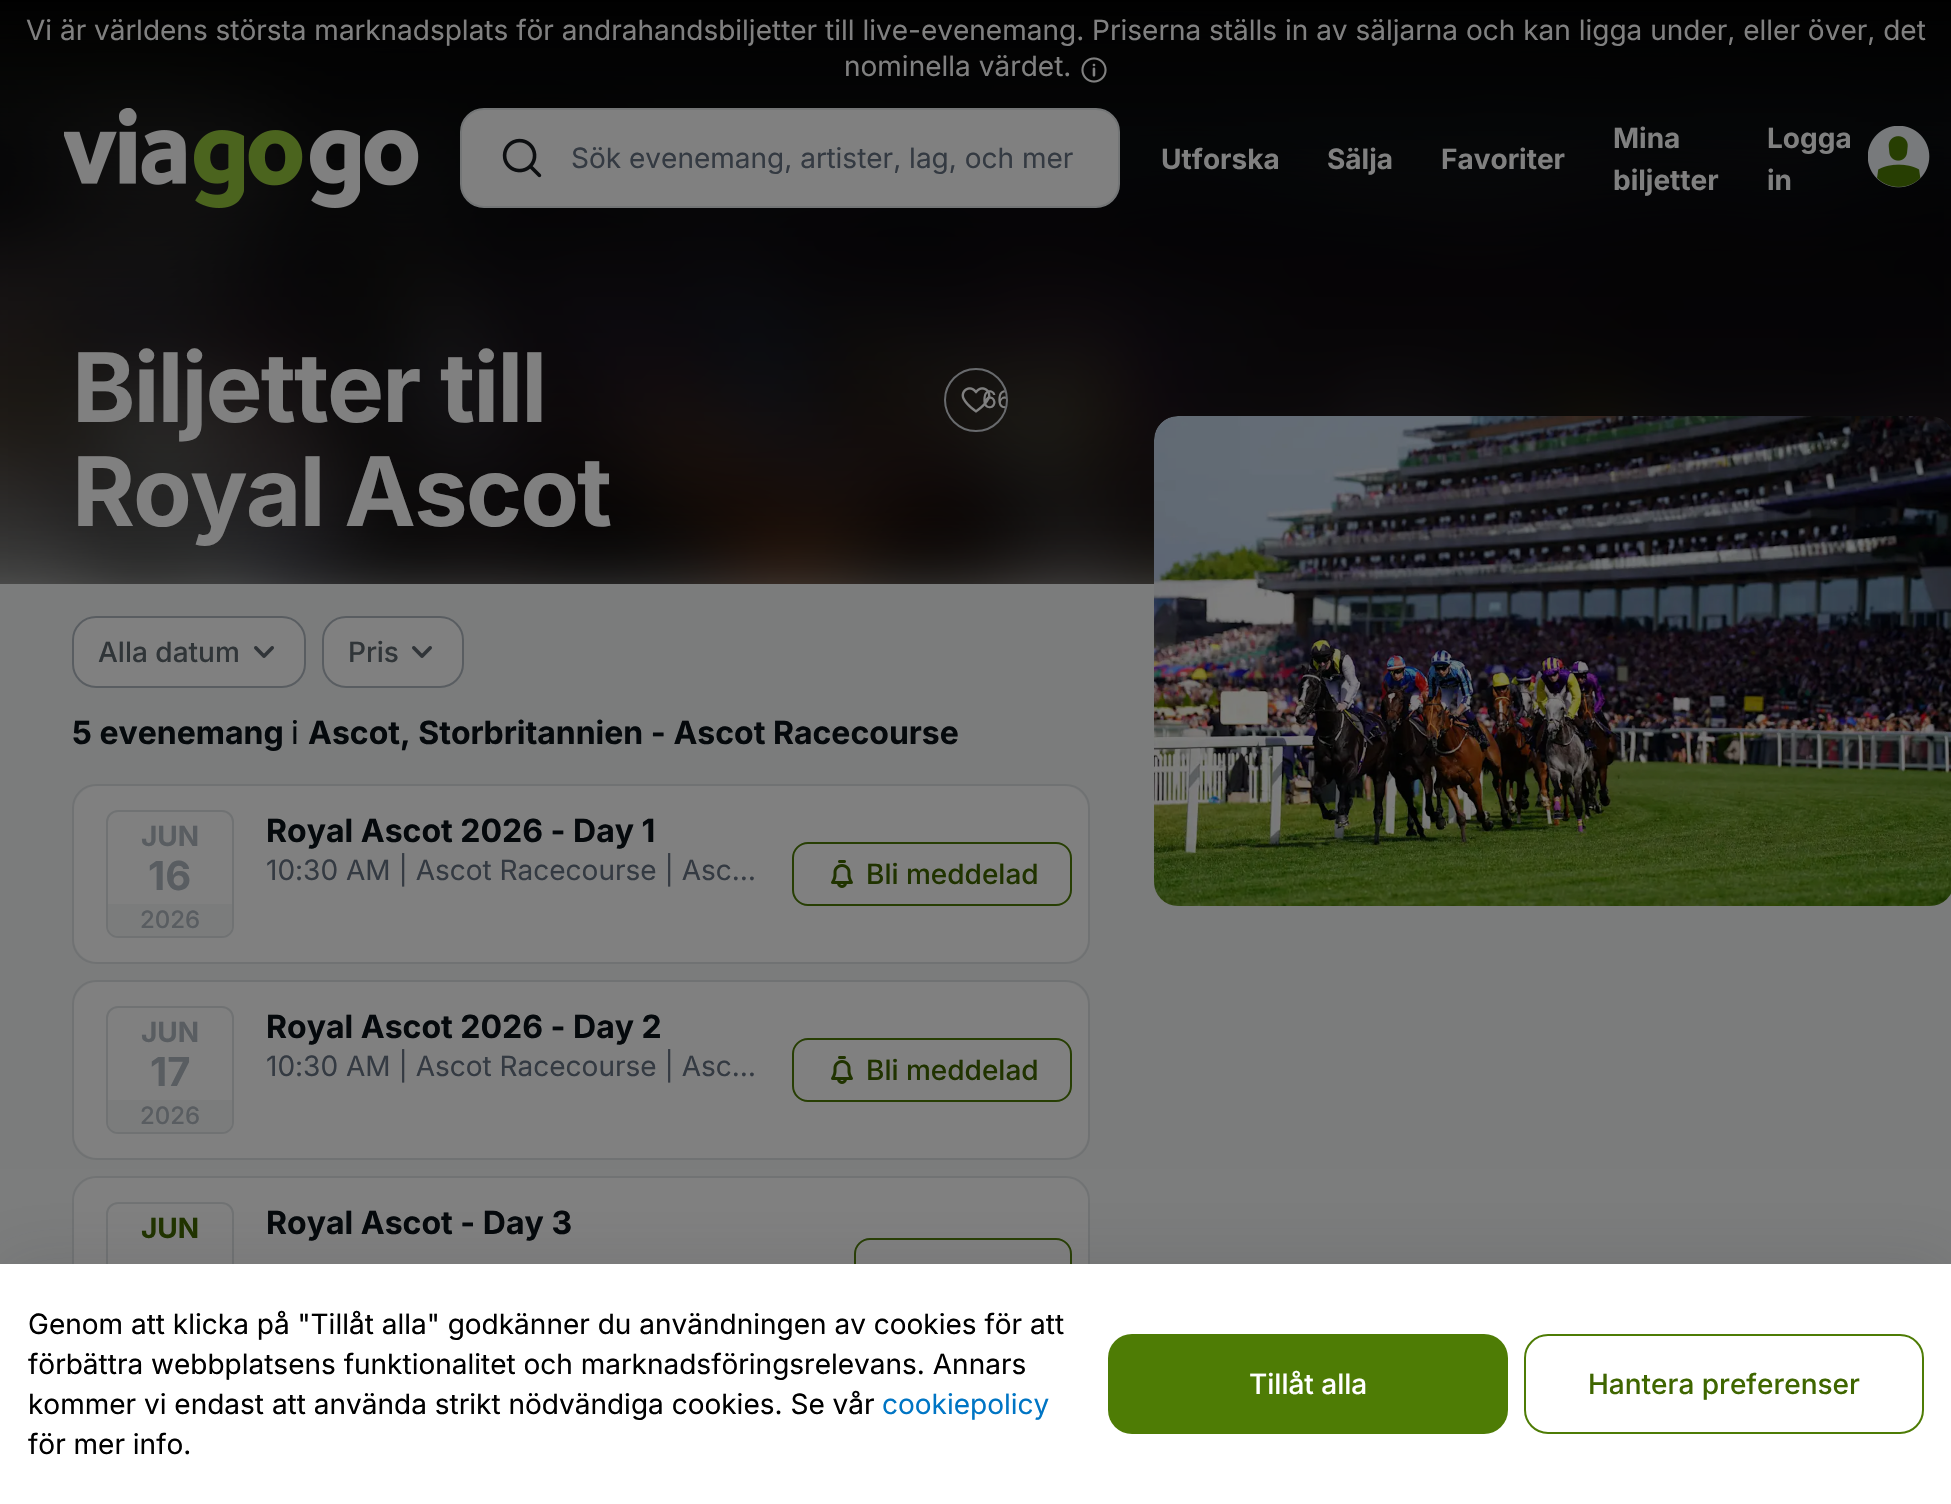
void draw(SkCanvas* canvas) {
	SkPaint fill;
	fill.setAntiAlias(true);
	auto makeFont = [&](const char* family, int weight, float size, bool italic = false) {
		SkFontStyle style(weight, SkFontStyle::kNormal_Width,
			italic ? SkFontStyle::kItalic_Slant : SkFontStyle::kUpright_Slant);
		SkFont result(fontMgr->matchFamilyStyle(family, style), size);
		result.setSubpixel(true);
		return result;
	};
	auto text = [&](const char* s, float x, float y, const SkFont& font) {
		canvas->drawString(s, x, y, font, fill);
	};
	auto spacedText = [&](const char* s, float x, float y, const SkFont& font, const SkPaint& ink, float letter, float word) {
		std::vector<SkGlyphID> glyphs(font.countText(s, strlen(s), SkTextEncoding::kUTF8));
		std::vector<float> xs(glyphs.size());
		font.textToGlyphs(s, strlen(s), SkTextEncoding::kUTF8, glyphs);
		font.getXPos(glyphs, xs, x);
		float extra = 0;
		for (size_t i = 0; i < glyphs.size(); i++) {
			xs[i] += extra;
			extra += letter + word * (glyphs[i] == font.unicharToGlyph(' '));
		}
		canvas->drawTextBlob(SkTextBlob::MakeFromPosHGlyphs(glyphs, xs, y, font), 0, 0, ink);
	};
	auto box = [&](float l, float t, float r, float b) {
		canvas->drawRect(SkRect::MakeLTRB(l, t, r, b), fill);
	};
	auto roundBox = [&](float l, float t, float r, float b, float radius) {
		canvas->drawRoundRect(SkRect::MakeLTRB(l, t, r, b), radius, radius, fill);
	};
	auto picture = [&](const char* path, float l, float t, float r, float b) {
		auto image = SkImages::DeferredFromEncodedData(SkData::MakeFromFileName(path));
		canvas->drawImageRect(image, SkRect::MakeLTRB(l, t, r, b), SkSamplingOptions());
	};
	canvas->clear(0xFFFFFFFF);
	picture("image0.png", 0, 7, 1951, 584);
	{
		const SkColor colors[] = {0x80000000, 0xFF000000};
		const float stops[] = {0, 1};
		const SkPoint ends[] = {{976, 584}, {976, 0}};
		fill.setShader(SkGradientShader::MakeLinear(ends, colors, stops, 2, SkTileMode::kClamp));
		fill.setAlpha(255);
	}
	box(0, 0, 1951, 584);
	picture("image1.png", 1081, 57, 1107, 83);
	picture("image2.png", 64, 108, 186, 185);
	picture("image3.png", 194, 130, 303, 208);
	picture("image4.png", 310, 130, 419, 208);
	fill.setShader(nullptr);
	fill.setColor(0xFF808080);
	canvas->drawRoundRect(SkRect::MakeLTRB(461, 109, 1119, 207), 23, 23, fill);
	fill.setStyle(SkPaint::kStroke_Style);
	fill.setStrokeWidth(2);
	fill.setColor(0xFF737576);
	canvas->drawRoundRect(SkRect::MakeLTRB(461, 109, 1119, 207), 23, 23, fill);
	picture("image5.png", 502, 138, 542, 178);
	picture("image6.png", 1868, 126, 1930, 188);
	fill.setColor(0xFF686A6D);
	canvas->drawCircle(976, 400, 31, fill);
	fill.setStyle(SkPaint::kFill_Style);
	fill.setColor(0xFF7B7C7C);
	box(0, 584, 1951, 1264);
	fill.setColor(0xFF808080);
	canvas->drawRoundRect(SkRect::MakeLTRB(73, 617, 305, 687), 23, 23, fill);
	fill.setStyle(SkPaint::kStroke_Style);
	fill.setColor(0xFF595D61);
	canvas->drawRoundRect(SkRect::MakeLTRB(73, 617, 305, 687), 23, 23, fill);
	picture("image8.png", 254, 646, 274, 658);
	fill.setStyle(SkPaint::kFill_Style);
	fill.setColor(0xFF808080);
	canvas->drawRoundRect(SkRect::MakeLTRB(323, 617, 463, 687), 23, 23, fill);
	fill.setStyle(SkPaint::kStroke_Style);
	fill.setColor(0xFF595D61);
	canvas->drawRoundRect(SkRect::MakeLTRB(323, 617, 463, 687), 23, 23, fill);
	picture("image8.png", 412, 646, 432, 658);
	fill.setColor(0xFF707273);
	canvas->drawRoundRect(SkRect::MakeLTRB(73, 785, 1089, 963), 23, 23, fill);
	fill.setStyle(SkPaint::kFill_Style);
	fill.setColor(0xFF808080);
	roundBox(74, 786, 1088, 962, 24);
	fill.setStyle(SkPaint::kStroke_Style);
	fill.setColor(0xFF707273);
	canvas->drawRoundRect(SkRect::MakeLTRB(107, 811, 233, 937), 11, 11, fill);
	fill.setStyle(SkPaint::kFill_Style);
	fill.setColor(0xFF7B7C7C);
	canvas->drawPath(SkPathBuilder().moveTo(108, 904).lineTo(232, 904).lineTo(232, 926).cubicTo(232, 931.5f, 227.5f, 936, 222, 936).lineTo(118, 936).cubicTo(112.5f, 936, 108, 931.5f, 108, 926).close().detach(), fill);
	fill.setStyle(SkPaint::kStroke_Style);
	fill.setColor(0xFF273E03);
	canvas->drawRoundRect(SkRect::MakeLTRB(793, 843, 1071, 905), 15, 15, fill);
	picture("image9.png", 831, 860, 853, 888);
	fill.setColor(0xFF707273);
	canvas->drawRoundRect(SkRect::MakeLTRB(73, 981, 1089, 1159), 23, 23, fill);
	fill.setStyle(SkPaint::kFill_Style);
	fill.setColor(0xFF808080);
	roundBox(74, 982, 1088, 1158, 24);
	fill.setStyle(SkPaint::kStroke_Style);
	fill.setColor(0xFF707273);
	canvas->drawRoundRect(SkRect::MakeLTRB(107, 1007, 233, 1133), 11, 11, fill);
	fill.setStyle(SkPaint::kFill_Style);
	fill.setColor(0xFF7B7C7C);
	canvas->drawPath(SkPathBuilder().moveTo(108, 1100).lineTo(232, 1100).lineTo(232, 1122).cubicTo(232, 1127.5f, 227.5f, 1132, 222, 1132).lineTo(118, 1132).cubicTo(112.5f, 1132, 108, 1127.5f, 108, 1122).close().detach(), fill);
	fill.setStyle(SkPaint::kStroke_Style);
	fill.setColor(0xFF273E03);
	canvas->drawRoundRect(SkRect::MakeLTRB(793, 1039, 1071, 1101), 15, 15, fill);
	picture("image9.png", 831, 1056, 853, 1084);
	fill.setColor(0xFF707273);
	canvas->drawRoundRect(SkRect::MakeLTRB(73, 1177, 1089, 1363), 23, 23, fill);
	fill.setStyle(SkPaint::kFill_Style);
	fill.setColor(0xFF808080);
	roundBox(74, 1178, 1088, 1362, 24);
	fill.setStyle(SkPaint::kStroke_Style);
	fill.setColor(0xFF707273);
	canvas->drawRoundRect(SkRect::MakeLTRB(107, 1203, 233, 1329), 11, 11, fill);
	fill.setColor(0xFF273E03);
	canvas->drawRoundRect(SkRect::MakeLTRB(855, 1239, 1071, 1301), 15, 15, fill);
	picture("image10.png", 1154, 416, 1951, 906);
	fill.setStyle(SkPaint::kFill_Style);
	fill.setColor(0x242F343B);
	fill.setMaskFilter(SkMaskFilter::MakeBlur(kNormal_SkBlurStyle, 32));
	canvas->drawRect(SkRect::MakeLTRB(0, 1264, 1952, 1504), fill);
	fill.setMaskFilter(nullptr);
	fill.setColor(0xFFFFFFFF);
	box(0, 1264, 1951, 1504);
	fill.setColor(0xFF4E7C05);
	roundBox(1108, 1334, 1508, 1434, 24);
	fill.setStyle(SkPaint::kStroke_Style);
	canvas->drawRoundRect(SkRect::MakeLTRB(1525, 1335, 1923, 1433), 23, 23, fill);
	auto font1 = makeFont("Inter", 400, 28);
	fill.setStyle(SkPaint::kFill_Style);
	fill.setColor(0xFF808080);
	text("Vi är världens största marknadsplats för andrahandsbiljetter till live-evenemang. Priserna ställs in av säljarna och kan ligga under, eller över, det", 26, 40, font1);
	text("nominella värdet.", 844, 76, font1);
	fill.setColor(0xFF343A42);
	text("Sök evenemang, artister, lag, och mer", 571, 168, font1);
	auto font2 = makeFont("Inter", 700, 28);
	fill.setColor(0xFF808080);
	text("Utforska", 1161, 169, font2);
	text("Sälja", 1327, 169, font2);
	text("Favoriter", 1441, 169, font2);
	text("Mina", 1613, 148, font2);
	text("biljetter", 1613, 190, font2);
	text("Logga", 1767, 148, font2);
	text("in", 1767, 190, font2);
	auto font3 = makeFont("Inter", 700, 96);
	spacedText("Biljetter till", 72, 422, font3, fill, -2, 0);
	spacedText("Royal Ascot", 72, 526, font3, fill, -2, 0);
	canvas->save();
	canvas->clipPath(SkPathBuilder().moveTo(976, 370).cubicTo(992.5f, 370, 1006, 383.5f, 1006, 400).cubicTo(1006, 416.5f, 992.5f, 430, 976, 430).cubicTo(959.5f, 430, 946, 416.5f, 946, 400).cubicTo(946, 383.5f, 959.5f, 370, 976, 370).close().detach(), true);
	auto font4 = makeFont("Inter", 400, 24);
	text("66", 982, 408, font4);
	canvas->restore();
	picture("image7.png", 961, 387, 991, 413);
	auto font5 = makeFont("Inter", 500, 28);
	fill.setColor(0xFF303538);
	text("Alla datum", 98, 662, font5);
	text("Pris", 348, 662, font5);
	auto font6 = makeFont("Inter", 700, 32);
	fill.setColor(0xFF05090C);
	text("5 evenemang", 72, 744, font6);
	auto font7 = makeFont("Inter", 400, 32);
	text("i", 291, 744, font7);
	text("Ascot, Storbritannien - Ascot Racecourse", 308, 744, font6);
	fill.setColor(0xFF595D61);
	text("JUN", 141, 846, font2);
	auto font8 = makeFont("Inter", 700, 40);
	text("16", 148, 890, font8);
	auto font9 = makeFont("Inter", 500, 24);
	text("2026", 140, 928, font9);
	fill.setColor(0xFF05090C);
	text("Royal Ascot 2026 - Day 1", 266, 842, font6);
	fill.setColor(0xFF343A42);
	text("10:30 AM | Ascot Racecourse | Asc…", 266, 880, font1);
	fill.setColor(0xFF203300);
	text("Bli meddelad", 866, 884, font5);
	fill.setColor(0xFF595D61);
	text("JUN", 141, 1042, font2);
	text("17", 150, 1086, font8);
	text("2026", 140, 1124, font9);
	fill.setColor(0xFF05090C);
	text("Royal Ascot 2026 - Day 2", 266, 1038, font6);
	fill.setColor(0xFF343A42);
	text("10:30 AM | Ascot Racecourse | Asc…", 266, 1076, font1);
	fill.setColor(0xFF203300);
	text("Bli meddelad", 866, 1080, font5);
	text("JUN", 141, 1238, font2);
	fill.setColor(0xFF05090C);
	text("Royal Ascot - Day 3", 266, 1234, font6);
	fill.setColor(0xFF000000);
	text("Genom att klicka på \"Tillåt alla\" godkänner du användningen av cookies för att", 28, 1334, font1);
	text("förbättra webbplatsens funktionalitet och marknadsföringsrelevans. Annars", 28, 1374, font1);
	text("kommer vi endast att använda strikt nödvändiga cookies. Se vår", 28, 1414, font1);
	fill.setColor(0xFF0075C4);
	text("cookiepolicy", 882, 1414, font1);
	fill.setColor(0xFF000000);
	text("för mer info.", 28, 1454, font1);
	fill.setColor(0xFFFFFFFF);
	text("Tillåt alla", 1249, 1394, font5);
	fill.setColor(0xFF3F6600);
	text("Hantera preferenser", 1588, 1394, font5);
}
